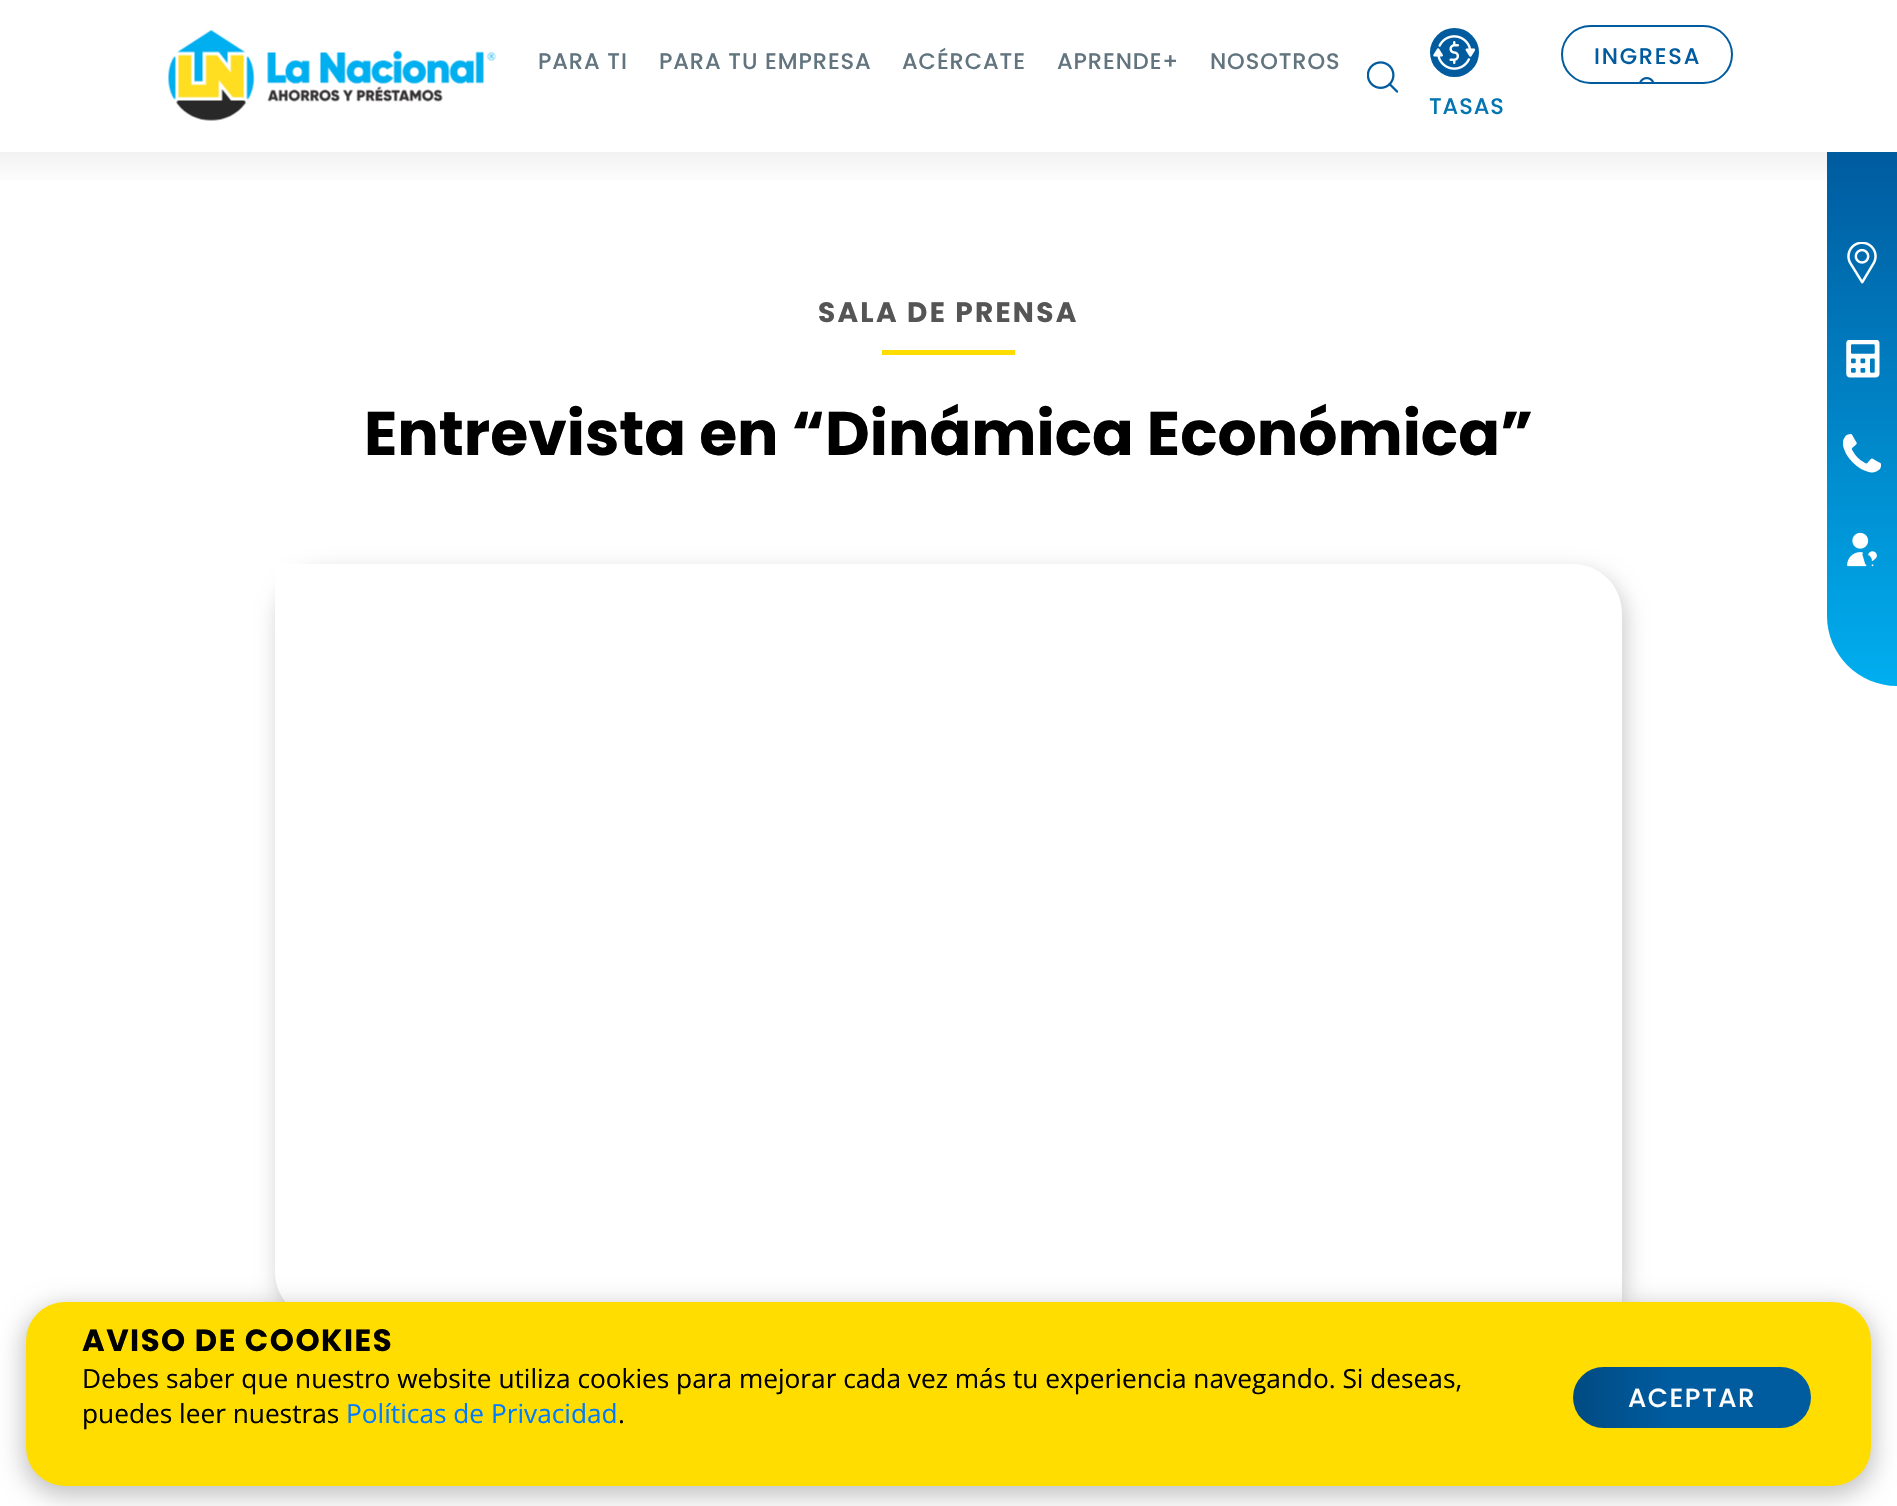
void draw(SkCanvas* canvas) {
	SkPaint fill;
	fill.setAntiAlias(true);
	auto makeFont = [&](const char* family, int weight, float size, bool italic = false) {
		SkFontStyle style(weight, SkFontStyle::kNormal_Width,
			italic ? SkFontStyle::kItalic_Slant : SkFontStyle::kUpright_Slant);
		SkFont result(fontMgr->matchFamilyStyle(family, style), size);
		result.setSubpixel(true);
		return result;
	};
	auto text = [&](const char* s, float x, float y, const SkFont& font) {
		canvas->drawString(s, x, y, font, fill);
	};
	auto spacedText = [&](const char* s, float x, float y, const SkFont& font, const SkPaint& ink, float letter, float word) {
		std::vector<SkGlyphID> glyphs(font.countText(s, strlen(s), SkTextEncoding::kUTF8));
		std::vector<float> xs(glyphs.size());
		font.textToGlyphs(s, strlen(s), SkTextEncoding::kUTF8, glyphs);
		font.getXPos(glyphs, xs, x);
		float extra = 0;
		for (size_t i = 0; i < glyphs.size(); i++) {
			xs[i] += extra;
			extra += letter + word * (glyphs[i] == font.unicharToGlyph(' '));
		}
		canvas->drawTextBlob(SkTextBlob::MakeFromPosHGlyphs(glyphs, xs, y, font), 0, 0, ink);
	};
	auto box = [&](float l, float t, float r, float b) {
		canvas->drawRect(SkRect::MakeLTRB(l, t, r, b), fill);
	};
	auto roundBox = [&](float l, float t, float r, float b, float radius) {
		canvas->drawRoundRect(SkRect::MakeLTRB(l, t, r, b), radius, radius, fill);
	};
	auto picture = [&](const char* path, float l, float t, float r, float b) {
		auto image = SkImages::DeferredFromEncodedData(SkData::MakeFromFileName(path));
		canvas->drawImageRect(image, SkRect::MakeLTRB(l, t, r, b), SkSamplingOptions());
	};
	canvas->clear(0xFFFFFFFF);
	picture("image0.png", 168, 29, 496, 121);
	picture("image1.png", 1367, 61, 1398, 93);
	fill.setStyle(SkPaint::kStroke_Style);
	fill.setStrokeWidth(2);
	fill.setColor(0xFF005B9F);
	canvas->drawRoundRect(SkRect::MakeLTRB(1562, 26, 1732, 83), 28.5f, 28.5f, fill);
	picture("image2.png", 1639, 77, 1655, 82);
	fill.setStyle(SkPaint::kFill_Style);
	canvas->drawCircle(1454.5f, 52.5f, 24.5f, fill);
	picture("image3.png", 1433, 35, 1475, 70);
	{
		const SkColor colors[] = {0xFFFFFFFF, 0xFFF2F2F2};
		const float stops[] = {0.6f, 1};
		const SkPoint ends[] = {{949, 240}, {949, 152}};
		fill.setShader(SkGradientShader::MakeLinear(ends, colors, stops, 2, SkTileMode::kClamp));
		fill.setAlpha(255);
	}
	box(0, 152, 1827, 180);
	{
		const SkColor colors[] = {0xFF00AEEF, 0xFF005B9F};
		const float stops[] = {0, 1};
		const SkPoint ends[] = {{1862, 686}, {1862, 152}};
		fill.setShader(SkGradientShader::MakeLinear(ends, colors, stops, 2, SkTileMode::kClamp));
		fill.setAlpha(255);
	}
	canvas->drawPath(SkPathBuilder().moveTo(1827, 152).lineTo(1897, 152).lineTo(1897, 686).cubicTo(1858.5f, 686, 1827, 654.5f, 1827, 616).close().detach(), fill);
	picture("image4.png", 1847, 242, 1877, 284);
	picture("image5.png", 1846, 340, 1880, 378);
	picture("image6.png", 1843, 434, 1881, 473);
	picture("image7.png", 1847, 532, 1877, 567);
	fill.setShader(nullptr);
	fill.setColor(0xFFFFDD00);
	box(882, 350, 1015, 355);
	canvas->save();
	canvas->clipPath(SkPathBuilder(SkPathFillType::kEvenOdd).moveTo(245, 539).lineTo(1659, 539).lineTo(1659, 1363).lineTo(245, 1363).close().moveTo(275, 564).lineTo(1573, 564).cubicTo(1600, 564, 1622, 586, 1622, 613).lineTo(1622, 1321).lineTo(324, 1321).cubicTo(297, 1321, 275, 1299, 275, 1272).close().detach(), true);
	fill.setColor(0x33000000);
	fill.setMaskFilter(SkMaskFilter::MakeBlur(kNormal_SkBlurStyle, 10.5f));
	canvas->drawRoundRect(SkRect::MakeLTRB(278, 572, 1626, 1330), 49, 49, fill);
	fill.setMaskFilter(nullptr);
	canvas->restore();
	fill.setColor(0x3D000000);
	fill.setMaskFilter(SkMaskFilter::MakeBlur(kNormal_SkBlurStyle, 12));
	canvas->drawRoundRect(SkRect::MakeLTRB(23, 1306, 1874, 1496), 42, 42, fill);
	fill.setMaskFilter(nullptr);
	fill.setColor(0xFFFFDD00);
	roundBox(26, 1302, 1871, 1486, 39);
	{
		const SkColor colors[] = {0xFF004B82, 0xFF005B9F};
		const float stops[] = {0, 0.4f};
		const SkPoint ends[] = {{1573, 1397}, {1811, 1397}};
		fill.setShader(SkGradientShader::MakeLinear(ends, colors, stops, 2, SkTileMode::kClamp));
		fill.setAlpha(255);
	}
	roundBox(1573, 1367, 1811, 1428, 30.5f);
	auto font1 = makeFont("Poppins", 500, 22.5f);
	fill.setShader(nullptr);
	fill.setColor(0xFF62757F);
	spacedText("PARA TI", 538, 69, font1, fill, 0.9f, 0);
	spacedText("PARA TU EMPRESA", 659, 69, font1, fill, 0.9f, 0);
	spacedText("ACÉRCATE", 902, 69, font1, fill, 0.9f, 0);
	spacedText("APRENDE+", 1057, 69, font1, fill, 0.9f, 0);
	spacedText("NOSOTROS", 1210, 69, font1, fill, 0.9f, 0);
	fill.setColor(0xFF005B9F);
	spacedText("INGRESA", 1594, 64, font1, fill, 1.75f, 0);
	fill.setColor(0xFF0375B0);
	spacedText("TASAS", 1429, 114, font1, fill, 0.9f, 0);
	auto font2 = makeFont("Poppins", 700, 28);
	fill.setColor(0xFF555555);
	spacedText("SALA DE PRENSA", 818, 322, font2, fill, 2.25f, 0);
	auto font3 = makeFont("Poppins", 700, 61.6f);
	fill.setColor(0xFF000000);
	text("Entrevista en “Dinámica Económica”", 364, 455, font3);
	auto font4 = makeFont("Poppins", 700, 30.75f);
	spacedText("AVISO DE COOKIES", 82, 1351, font4, fill, 1.5f, 0);
	auto font5 = makeFont("Open Sans", 400, 26.25f);
	text("Debes saber que nuestro website utiliza cookies para mejorar cada vez más tu experiencia navegando. Si deseas,", 82, 1388, font5);
	text("puedes leer nuestras", 82, 1423, font5);
	fill.setColor(0xFF007BFF);
	text("Políticas de Privacidad", 346, 1423, font5);
	fill.setColor(0xFF000000);
	text(".", 618, 1423, font5);
	auto font6 = makeFont("Poppins", 500, 26.25f);
	fill.setColor(0xFFFFFFFF);
	spacedText("ACEPTAR", 1628, 1407, font6, fill, 1.5f, 0);
}
